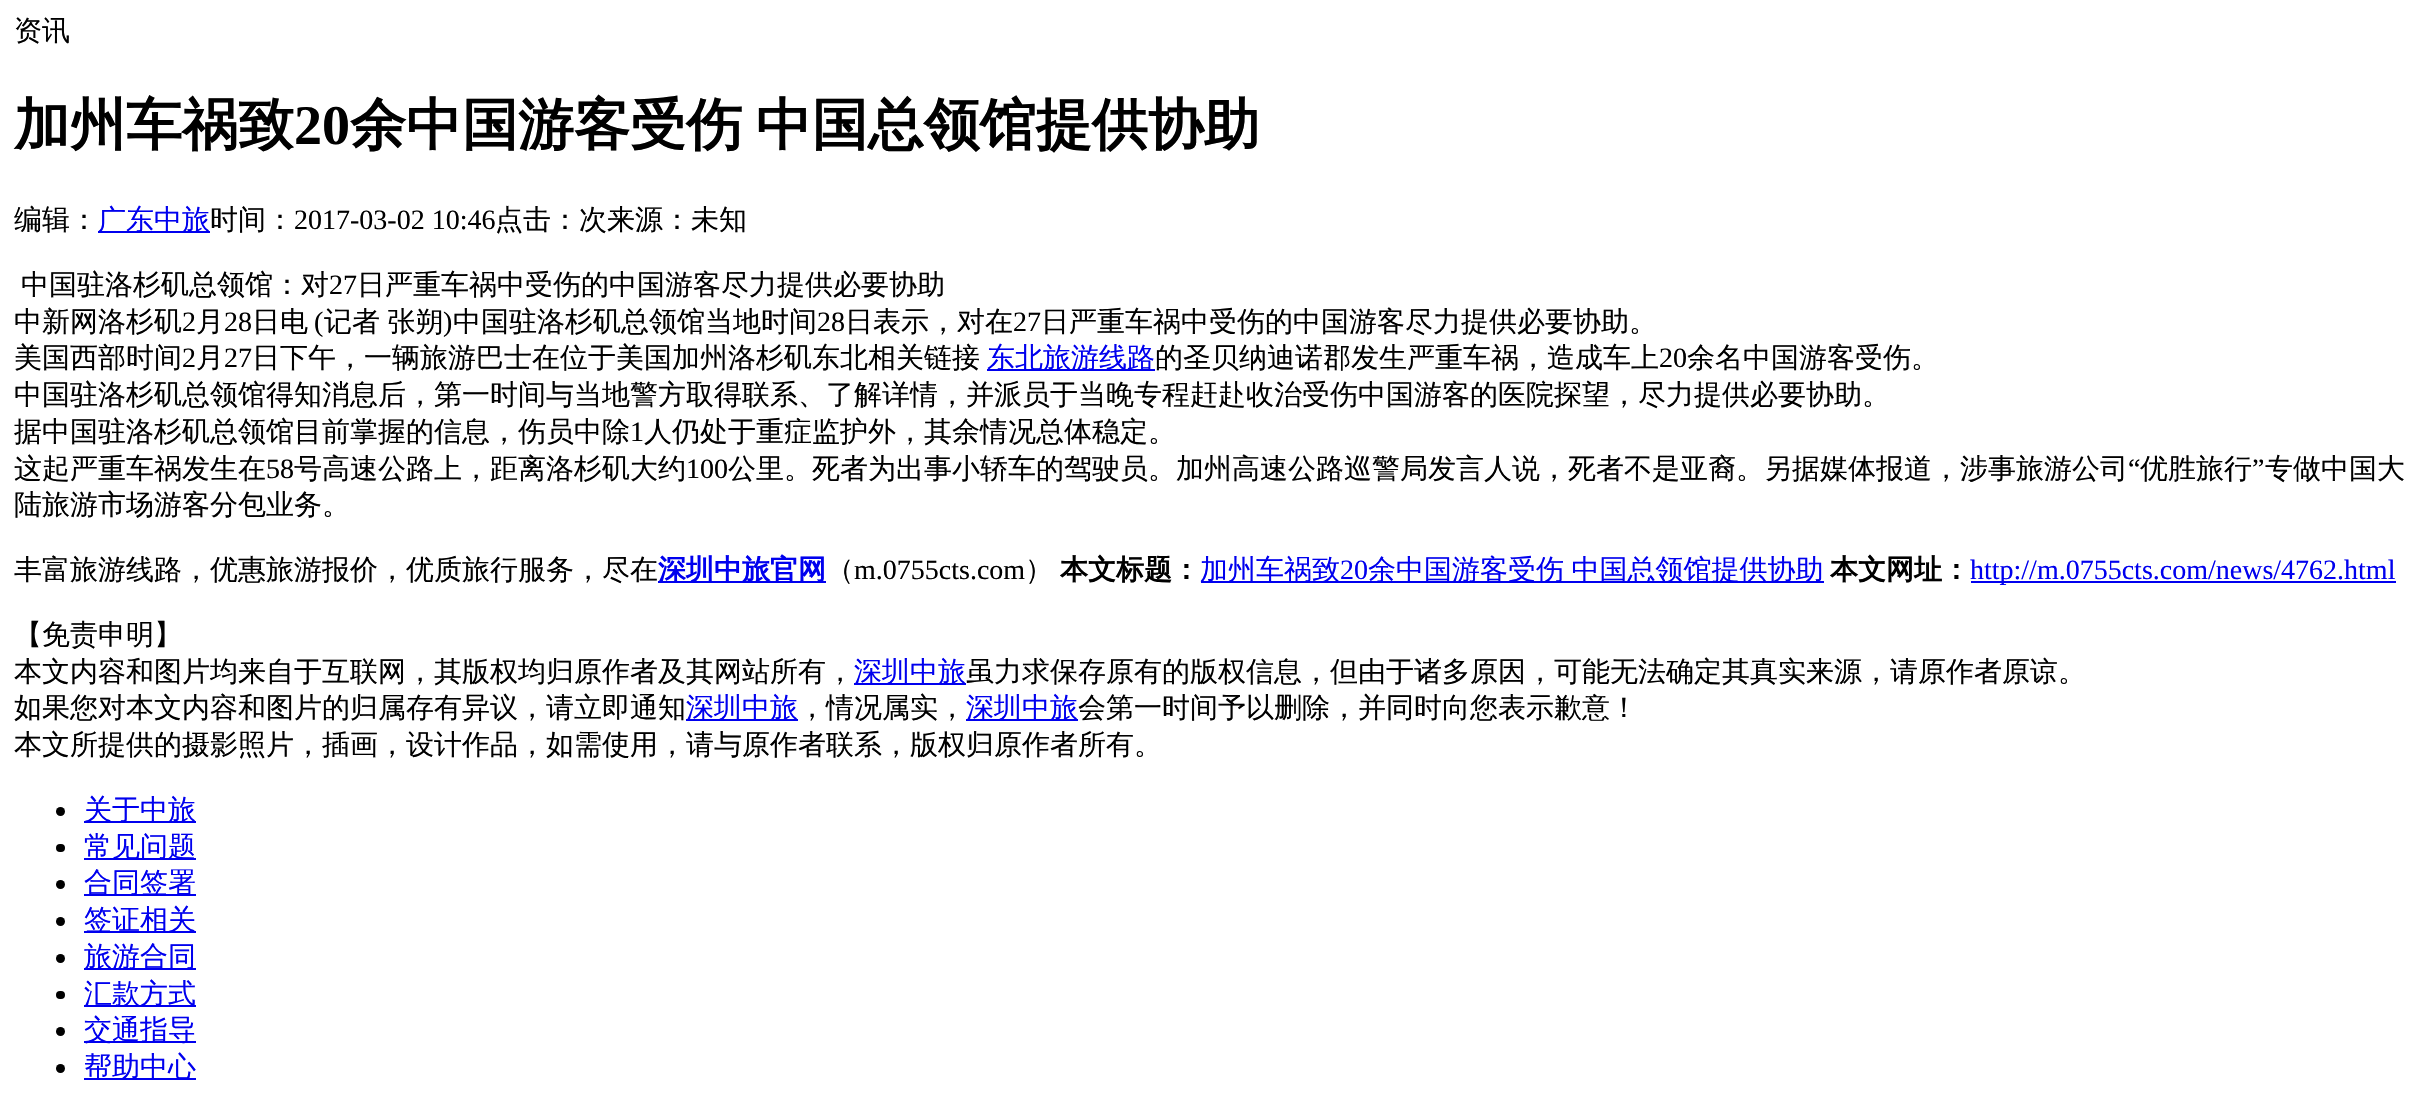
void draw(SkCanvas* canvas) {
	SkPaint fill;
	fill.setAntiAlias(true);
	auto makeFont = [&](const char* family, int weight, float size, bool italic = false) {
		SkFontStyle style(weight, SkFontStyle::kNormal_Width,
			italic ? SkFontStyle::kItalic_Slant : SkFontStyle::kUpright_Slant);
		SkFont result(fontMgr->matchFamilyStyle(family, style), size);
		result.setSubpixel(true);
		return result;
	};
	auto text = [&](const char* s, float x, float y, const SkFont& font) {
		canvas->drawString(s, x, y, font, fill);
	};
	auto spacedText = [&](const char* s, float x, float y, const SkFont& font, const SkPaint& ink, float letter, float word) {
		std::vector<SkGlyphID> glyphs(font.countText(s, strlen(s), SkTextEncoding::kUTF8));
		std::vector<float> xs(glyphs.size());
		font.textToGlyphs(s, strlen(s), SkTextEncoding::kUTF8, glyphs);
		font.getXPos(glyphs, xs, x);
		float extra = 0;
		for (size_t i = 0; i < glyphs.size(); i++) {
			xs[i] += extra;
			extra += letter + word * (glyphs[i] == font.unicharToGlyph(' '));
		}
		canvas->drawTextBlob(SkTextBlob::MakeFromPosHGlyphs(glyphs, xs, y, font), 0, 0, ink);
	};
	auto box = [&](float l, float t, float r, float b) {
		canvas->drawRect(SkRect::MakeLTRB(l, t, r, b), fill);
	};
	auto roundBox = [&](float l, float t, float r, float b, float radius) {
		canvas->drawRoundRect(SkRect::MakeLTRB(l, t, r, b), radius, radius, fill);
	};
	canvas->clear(0xFFFFFFFF);
	fill.setColor(0xFF0000EE);
	box(98, 231, 210, 233);
	box(987, 369, 1155, 371);
	box(658, 581, 826, 583);
	box(1201, 581, 1824, 583);
	box(1971, 581, 2396, 583);
	box(854, 683, 966, 685);
	box(686, 719, 798, 721);
	box(966, 719, 1078, 721);
	fill.setColor(0xFF000000);
	canvas->drawCircle(60.5f, 811.5f, 4.5f, fill);
	fill.setColor(0xFF0000EE);
	box(84, 821, 196, 823);
	fill.setColor(0xFF000000);
	roundBox(56, 844, 65, 852, 4);
	fill.setColor(0xFF0000EE);
	box(84, 858, 196, 860);
	fill.setColor(0xFF000000);
	canvas->drawCircle(60.5f, 884.5f, 4.5f, fill);
	fill.setColor(0xFF0000EE);
	box(84, 894, 196, 896);
	fill.setColor(0xFF000000);
	canvas->drawCircle(60.5f, 921.5f, 4.5f, fill);
	fill.setColor(0xFF0000EE);
	box(84, 931, 196, 933);
	fill.setColor(0xFF000000);
	canvas->drawCircle(60.5f, 958.5f, 4.5f, fill);
	fill.setColor(0xFF0000EE);
	box(84, 968, 196, 970);
	fill.setColor(0xFF000000);
	roundBox(56, 991, 65, 999, 4);
	fill.setColor(0xFF0000EE);
	box(84, 1005, 196, 1007);
	fill.setColor(0xFF000000);
	canvas->drawCircle(60.5f, 1031.5f, 4.5f, fill);
	fill.setColor(0xFF0000EE);
	box(84, 1041, 196, 1043);
	fill.setColor(0xFF000000);
	canvas->drawCircle(60.5f, 1068.5f, 4.5f, fill);
	fill.setColor(0xFF0000EE);
	box(84, 1078, 196, 1080);
	auto font1 = makeFont("WenQuanYi Zen Hei", 500, 28);
	fill.setColor(0xFF000000);
	text("资讯", 14, 40, font1);
	auto font2 = makeFont("WenQuanYi Zen Hei", 700, 56);
	text("加州车祸致", 14, 144, font2);
	auto font3 = makeFont("Liberation Serif", 700, 56);
	text("20", 294, 144, font3);
	spacedText("余中国游客受伤 中国总领馆提供协助", 350, 144, font2, fill, 0, -3);
	text("编辑：", 14, 229, font1);
	fill.setColor(0xFF0000EE);
	text("广东中旅", 98, 229, font1);
	fill.setColor(0xFF000000);
	text("时间：", 210, 229, font1);
	auto font4 = makeFont("Liberation Serif", 400, 28);
	text("2017-03-02 10:46", 294, 229, font4);
	text("点击：次来源：未知", 495, 229, font1);
	text("中国驻洛杉矶总领馆：对", 21, 294, font1);
	text("27", 329, 294, font4);
	text("日严重车祸中受伤的中国游客尽力提供必要协助", 357, 294, font1);
	text("中新网洛杉矶", 14, 331, font1);
	text("2", 182, 331, font4);
	text("月", 196, 331, font1);
	text("28", 224, 331, font4);
	text("日电", 252, 331, font1);
	text("(", 314, 331, font4);
	spacedText("记者 张朔", 324, 331, font1, fill, 0, -1);
	text(")", 443, 331, font4);
	text("中国驻洛杉矶总领馆当地时间", 453, 331, font1);
	text("28", 817, 331, font4);
	text("日表示，对在", 845, 331, font1);
	text("27", 1013, 331, font4);
	text("日严重车祸中受伤的中国游客尽力提供必要协助。", 1041, 331, font1);
	text("美国西部时间", 14, 367, font1);
	text("2", 182, 367, font4);
	text("月", 196, 367, font1);
	text("27", 224, 367, font4);
	text("日下午，一辆旅游巴士在位于美国加州洛杉矶东北相关链接", 252, 367, font1);
	fill.setColor(0xFF0000EE);
	text("东北旅游线路", 987, 367, font1);
	fill.setColor(0xFF000000);
	text("的圣贝纳迪诺郡发生严重车祸，造成车上", 1155, 367, font1);
	text("20", 1659, 367, font4);
	text("余名中国游客受伤。", 1687, 367, font1);
	text("中国驻洛杉矶总领馆得知消息后，第一时间与当地警方取得联系、了解详情，并派员于当晚专程赶赴收治受伤中国游客的医院探望，尽力提供必要协助。", 14, 404, font1);
	text("据中国驻洛杉矶总领馆目前掌握的信息，伤员中除", 14, 441, font1);
	text("1", 630, 441, font4);
	text("人仍处于重症监护外，其余情况总体稳定。", 644, 441, font1);
	text("这起严重车祸发生在", 14, 478, font1);
	text("58", 266, 478, font4);
	text("号高速公路上，距离洛杉矶大约", 294, 478, font1);
	text("100", 686, 478, font4);
	text("公里。死者为出事小轿车的驾驶员。加州高速公路巡警局发言人说，死者不是亚裔。另据媒体报道，涉事旅游公司", 728, 478, font1);
	text("“", 2128, 478, font4);
	text("优胜旅行", 2140, 478, font1);
	text("”", 2252, 478, font4);
	text("专做中国大", 2265, 478, font1);
	text("陆旅游市场游客分包业务。", 14, 514, font1);
	text("丰富旅游线路，优惠旅游报价，优质旅行服务，尽在", 14, 579, font1);
	auto font5 = makeFont("WenQuanYi Zen Hei", 700, 28);
	fill.setColor(0xFF0000EE);
	text("深圳中旅官网", 658, 579, font5);
	fill.setColor(0xFF000000);
	text("（", 826, 579, font1);
	text("m.0755cts.com", 854, 579, font4);
	text("）", 1025, 579, font1);
	text("本文标题：", 1060, 579, font5);
	fill.setColor(0xFF0000EE);
	text("加州车祸致", 1200, 579, font1);
	text("20", 1340, 579, font4);
	spacedText("余中国游客受伤 中国总领馆提供协助", 1368, 579, font1, fill, 0, -1);
	fill.setColor(0xFF000000);
	text("本文网址：", 1830, 579, font5);
	fill.setColor(0xFF0000EE);
	text("http://m.0755cts.com/news/4762.html", 1970, 579, font4);
	fill.setColor(0xFF000000);
	text("【免责申明】", 14, 644, font1);
	text("本文内容和图片均来自于互联网，其版权均归原作者及其网站所有，", 14, 681, font1);
	fill.setColor(0xFF0000EE);
	text("深圳中旅", 854, 681, font1);
	fill.setColor(0xFF000000);
	text("虽力求保存原有的版权信息，但由于诸多原因，可能无法确定其真实来源，请原作者原谅。", 966, 681, font1);
	text("如果您对本文内容和图片的归属存有异议，请立即通知", 14, 717, font1);
	fill.setColor(0xFF0000EE);
	text("深圳中旅", 686, 717, font1);
	fill.setColor(0xFF000000);
	text("，情况属实，", 798, 717, font1);
	fill.setColor(0xFF0000EE);
	text("深圳中旅", 966, 717, font1);
	fill.setColor(0xFF000000);
	text("会第一时间予以删除，并同时向您表示歉意！", 1078, 717, font1);
	text("本文所提供的摄影照片，插画，设计作品，如需使用，请与原作者联系，版权归原作者所有。", 14, 754, font1);
	fill.setColor(0xFF0000EE);
	text("关于中旅", 84, 819, font1);
	text("常见问题", 84, 856, font1);
	text("合同签署", 84, 892, font1);
	text("签证相关", 84, 929, font1);
	text("旅游合同", 84, 966, font1);
	text("汇款方式", 84, 1003, font1);
	text("交通指导", 84, 1039, font1);
	text("帮助中心", 84, 1076, font1);
}
